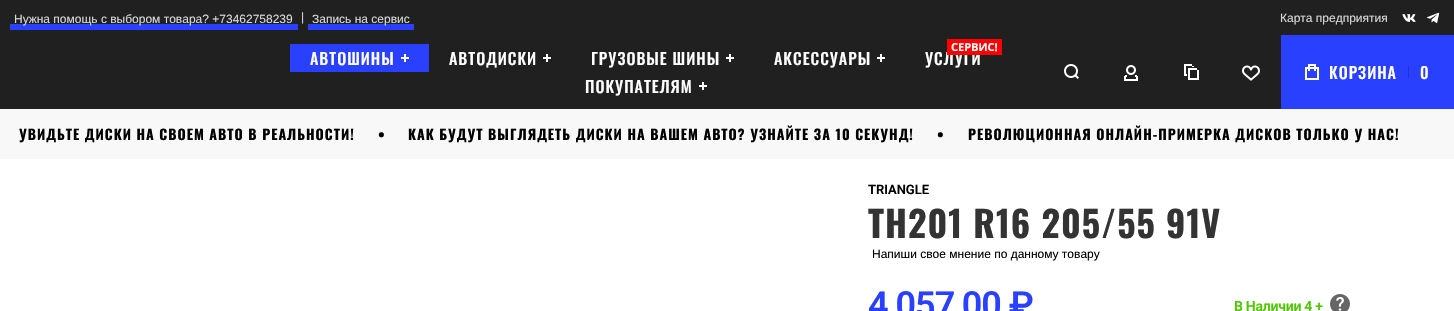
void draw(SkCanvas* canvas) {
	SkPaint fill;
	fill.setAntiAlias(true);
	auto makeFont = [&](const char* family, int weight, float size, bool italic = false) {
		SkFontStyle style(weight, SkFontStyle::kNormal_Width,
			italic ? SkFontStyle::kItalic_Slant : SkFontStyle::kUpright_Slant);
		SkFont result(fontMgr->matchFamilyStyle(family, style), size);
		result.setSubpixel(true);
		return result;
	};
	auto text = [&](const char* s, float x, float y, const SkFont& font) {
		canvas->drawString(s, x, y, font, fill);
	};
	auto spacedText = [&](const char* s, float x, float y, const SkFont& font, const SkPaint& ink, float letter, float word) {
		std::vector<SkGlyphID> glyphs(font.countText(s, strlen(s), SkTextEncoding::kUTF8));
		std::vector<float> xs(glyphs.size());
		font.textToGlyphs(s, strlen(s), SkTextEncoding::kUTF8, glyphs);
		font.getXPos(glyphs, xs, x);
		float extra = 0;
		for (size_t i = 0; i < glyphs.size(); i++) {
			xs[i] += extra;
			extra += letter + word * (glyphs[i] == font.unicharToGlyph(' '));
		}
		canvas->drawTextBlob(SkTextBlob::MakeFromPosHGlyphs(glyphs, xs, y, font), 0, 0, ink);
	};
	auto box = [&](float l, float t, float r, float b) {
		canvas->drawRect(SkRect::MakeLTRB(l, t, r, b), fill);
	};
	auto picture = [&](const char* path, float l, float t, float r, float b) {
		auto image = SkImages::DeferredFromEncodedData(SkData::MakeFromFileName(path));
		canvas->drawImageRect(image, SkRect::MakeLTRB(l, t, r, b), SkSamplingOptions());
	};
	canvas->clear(0xFFFFFFFF);
	fill.setColor(0xFF202020);
	box(0, 0, 1454, 109);
	fill.setColor(0xFF2A40FF);
	box(10, 24, 298, 30);
	box(308, 24, 414, 30);
	picture("image0.png", 1402, 14, 1416, 22);
	picture("image1.png", 1426, 12, 1440, 23);
	box(290, 44, 429, 72);
	fill.setColor(0xFFFFFFFF);
	box(401, 57, 409, 59);
	box(404, 54, 406, 62);
	box(543, 57, 551, 59);
	box(546, 54, 548, 62);
	box(726, 57, 734, 59);
	box(729, 54, 731, 62);
	box(877, 57, 885, 59);
	box(880, 54, 882, 62);
	box(699, 85, 707, 87);
	box(702, 82, 704, 90);
	picture("image2.png", 1064, 64, 1079, 79);
	picture("image3.png", 1124, 65, 1138, 81);
	picture("image4.png", 1184, 64, 1199, 80);
	picture("image5.png", 1242, 65, 1260, 81);
	fill.setColor(0xFF2A40FF);
	box(1281, 35, 1454, 109);
	picture("image6.png", 1305, 64, 1319, 80);
	fill.setColor(0xFF2133C9);
	box(1408, 66, 1409, 78);
	fill.setColor(0xFFF8F8F8);
	box(0, 109, 1454, 159);
	picture("image7.png", 1330, 294, 1350, 311);
	auto font1 = makeFont("Liberation Sans", 400, 12);
	fill.setColor(0xFFD9D9D9);
	text("Нужна помощь с выбором товара? +73462758239", 14, 23, font1);
	text("|", 301, 21, font1);
	text("Запись на сервис", 312, 23, font1);
	text("Карта предприятия", 1280, 22, font1);
	auto font2 = makeFont("Oswald", 500, 16);
	fill.setColor(0xFFFFFFFF);
	spacedText("АВТОШИНЫ", 310, 65, font2, fill, 1, 0);
	spacedText("АВТОДИСКИ", 449, 65, font2, fill, 1, 0);
	spacedText("ГРУЗОВЫЕ ШИНЫ", 591, 65, font2, fill, 1, 0);
	spacedText("АКСЕССУАРЫ", 774, 65, font2, fill, 1, 0);
	spacedText("УСЛУГИ", 925, 65, font2, fill, 1, 0);
	fill.setColor(0xFFFF0000);
	box(947, 39, 1002, 55);
	auto font3 = makeFont("Open Sans", 700, 11);
	fill.setColor(0xFFFFFFFF);
	text("СЕРВИС!", 951, 51, font3);
	spacedText("ПОКУПАТЕЛЯМ", 585, 93, font2, fill, 1, 0);
	spacedText("КОРЗИНА", 1329, 79, font2, fill, 1, 0);
	spacedText("0", 1420, 79, font2, fill, 1, 0);
	auto font4 = makeFont("Oswald", 700, 14);
	fill.setColor(0xFF000000);
	spacedText("УВИДЬТЕ ДИСКИ НА СВОЕМ АВТО В РЕАЛЬНОСТИ!", 19, 140, font4, fill, 1, 0);
	spacedText("•", 378, 140, font4, fill, 1, 0);
	spacedText("КАК БУДУТ ВЫГЛЯДЕТЬ ДИСКИ НА ВАШЕМ АВТО? УЗНАЙТЕ ЗА 10 СЕКУНД!", 408, 140, font4, fill, 1, 0);
	spacedText("•", 937, 140, font4, fill, 1, 0);
	spacedText("РЕВОЛЮЦИОННАЯ ОНЛАЙН-ПРИМЕРКА ДИСКОВ ТОЛЬКО У НАС!", 968, 140, font4, fill, 1, 0);
	auto font5 = makeFont("Roboto", 600, 13);
	text("TRIANGLE", 868, 194, font5);
	auto font6 = makeFont("Oswald", 700, 36);
	fill.setColor(0xFF333333);
	spacedText("TH201 R16 205/55 91V", 868, 238, font6, fill, 1, 0);
	fill.setColor(0xFF000000);
	text("Напиши свое мнение по данному товару", 872, 258, font1);
	auto font7 = makeFont("Roboto", 600, 36);
	fill.setColor(0xFF2A40FF);
	spacedText("4 057,00 ₽", 868, 317, font7, fill, -1, 0);
	auto font8 = makeFont("Roboto", 600, 14);
	fill.setColor(0xFF4EC700);
	spacedText("В Наличии 4 +", 1234, 311, font8, fill, -0.25f, 0);
}
